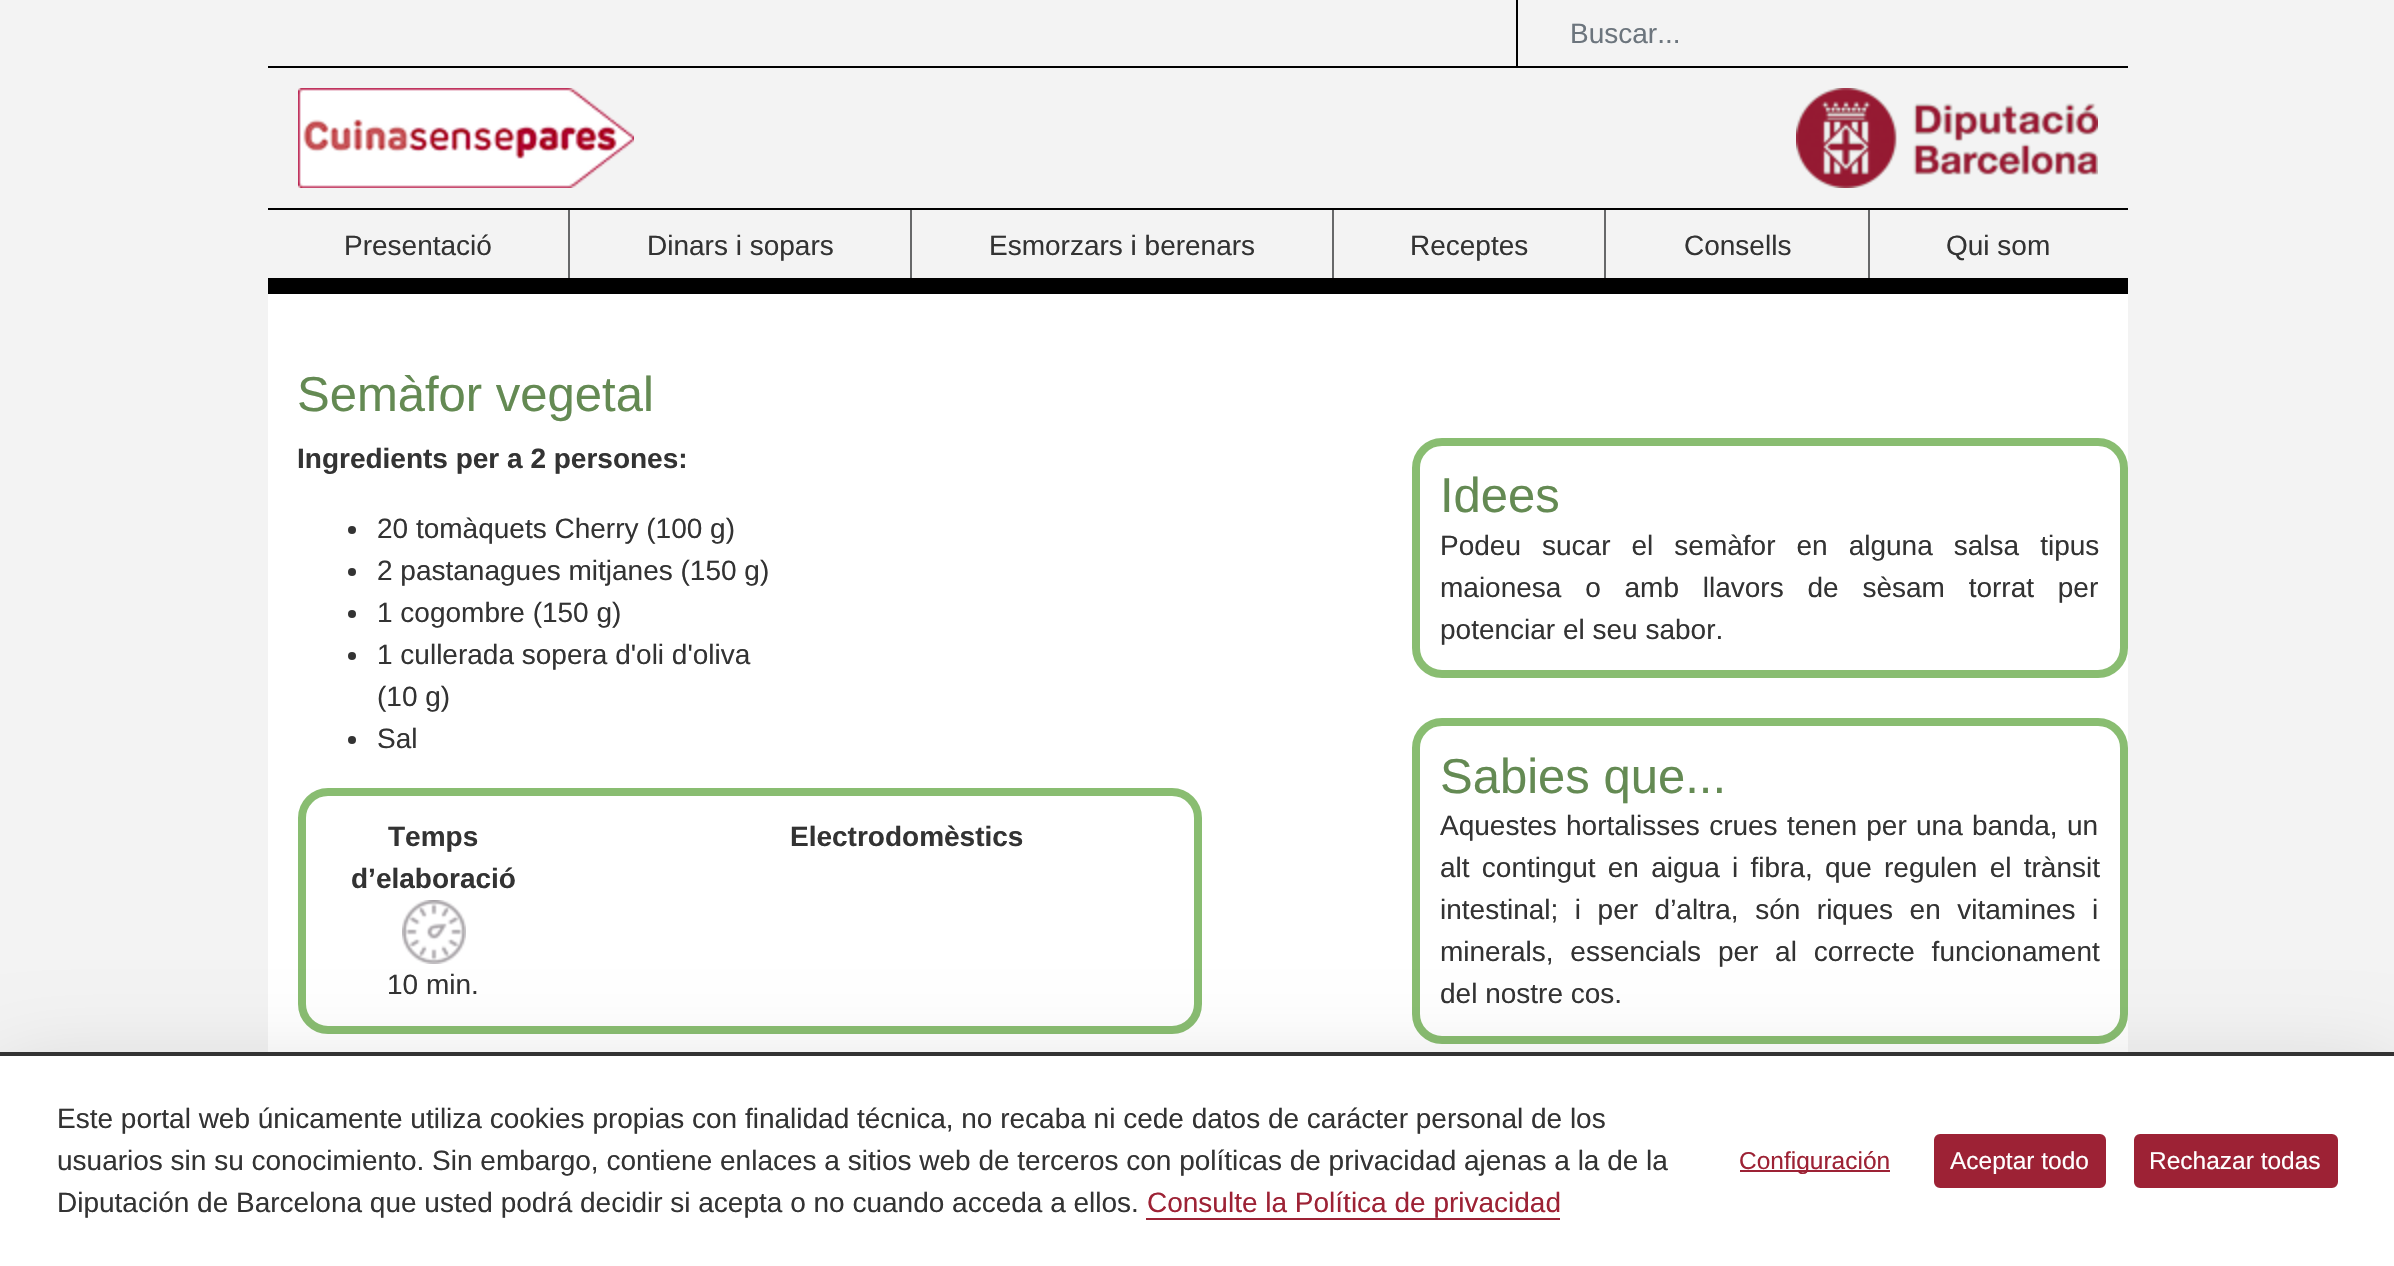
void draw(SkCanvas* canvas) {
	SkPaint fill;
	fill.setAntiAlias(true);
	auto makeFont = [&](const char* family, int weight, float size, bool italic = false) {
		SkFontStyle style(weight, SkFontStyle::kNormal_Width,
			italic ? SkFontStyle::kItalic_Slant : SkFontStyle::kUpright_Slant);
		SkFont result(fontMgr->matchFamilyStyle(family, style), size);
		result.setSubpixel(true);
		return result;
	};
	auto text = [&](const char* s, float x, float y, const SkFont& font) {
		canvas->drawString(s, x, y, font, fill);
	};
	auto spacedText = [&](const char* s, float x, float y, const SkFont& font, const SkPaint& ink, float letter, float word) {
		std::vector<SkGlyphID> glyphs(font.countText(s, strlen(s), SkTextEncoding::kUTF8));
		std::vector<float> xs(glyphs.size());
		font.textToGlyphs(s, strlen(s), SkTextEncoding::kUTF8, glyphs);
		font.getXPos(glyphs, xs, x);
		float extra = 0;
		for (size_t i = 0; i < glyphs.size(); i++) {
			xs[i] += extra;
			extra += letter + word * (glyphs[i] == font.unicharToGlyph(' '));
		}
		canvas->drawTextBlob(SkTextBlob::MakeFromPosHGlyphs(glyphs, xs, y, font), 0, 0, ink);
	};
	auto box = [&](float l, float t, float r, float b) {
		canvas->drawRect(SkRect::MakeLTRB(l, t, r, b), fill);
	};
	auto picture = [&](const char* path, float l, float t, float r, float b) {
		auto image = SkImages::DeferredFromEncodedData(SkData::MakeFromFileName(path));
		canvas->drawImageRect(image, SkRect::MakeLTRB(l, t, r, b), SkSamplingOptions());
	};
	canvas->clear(0xFFF3F3F3);
	fill.setColor(0xFF000000);
	box(1516, 0, 1518, 66);
	box(268, 66, 2128, 68);
	picture("image0.png", 298, 88, 634, 188);
	picture("image1.png", 1796, 88, 2098, 188);
	box(268, 208, 2128, 210);
	box(268, 278, 2128, 294);
	fill.setColor(0xFF676869);
	box(568, 210, 570, 278);
	box(910, 210, 912, 278);
	box(1332, 210, 1334, 278);
	box(1604, 210, 1606, 278);
	box(1868, 210, 1870, 278);
	fill.setColor(0xFFFFFFFF);
	box(268, 294, 2128, 1052);
	fill.setColor(0xFF333333);
	canvas->drawCircle(352, 530, 4, fill);
	canvas->drawCircle(352, 572, 4, fill);
	canvas->drawCircle(352, 614, 4, fill);
	canvas->drawCircle(352, 656, 4, fill);
	canvas->drawCircle(352, 740, 4, fill);
	fill.setStyle(SkPaint::kStroke_Style);
	fill.setStrokeWidth(8);
	fill.setColor(0xFF89BD71);
	canvas->drawRoundRect(SkRect::MakeLTRB(302, 792, 1198, 1030), 26, 26, fill);
	picture("image2.png", 402, 900, 466, 964);
	canvas->drawRoundRect(SkRect::MakeLTRB(1416, 442, 2124, 674), 26, 26, fill);
	canvas->drawRoundRect(SkRect::MakeLTRB(1416, 722, 2124, 1040), 26, 26, fill);
	fill.setStyle(SkPaint::kFill_Style);
	fill.setColor(0x2E000000);
	fill.setMaskFilter(SkMaskFilter::MakeBlur(kNormal_SkBlurStyle, 48));
	canvas->drawRect(SkRect::MakeLTRB(0, 1084, 2394, 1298), fill);
	fill.setMaskFilter(nullptr);
	fill.setColor(0xFFFFFFFF);
	box(0, 1056, 2394, 1266);
	fill.setColor(0xFF333333);
	box(0, 1052, 2394, 1056);
	fill.setColor(0xFF9D2235);
	box(1146, 1218, 1560, 1220);
	box(1740, 1170, 1890, 1172);
	canvas->drawRoundRect(SkRect::MakeLTRB(1935, 1135, 2105, 1187), 5, 5, fill);
	fill.setStyle(SkPaint::kStroke_Style);
	fill.setStrokeWidth(2);
	canvas->drawRoundRect(SkRect::MakeLTRB(1935, 1135, 2105, 1187), 5, 5, fill);
	fill.setStyle(SkPaint::kFill_Style);
	canvas->drawRoundRect(SkRect::MakeLTRB(2135, 1135, 2337, 1187), 5, 5, fill);
	fill.setStyle(SkPaint::kStroke_Style);
	canvas->drawRoundRect(SkRect::MakeLTRB(2135, 1135, 2337, 1187), 5, 5, fill);
	auto font1 = makeFont("Liberation Sans", 400, 28);
	fill.setStyle(SkPaint::kFill_Style);
	fill.setColor(0xFF6C757D);
	text("Buscar...", 1570, 43, font1);
	fill.setColor(0xFF333333);
	text("Presentació", 344, 255, font1);
	text("Dinars i sopars", 647, 255, font1);
	text("Esmorzars i berenars", 989, 255, font1);
	text("Receptes", 1410, 255, font1);
	text("Consells", 1684, 255, font1);
	text("Qui som", 1946, 255, font1);
	auto font2 = makeFont("Liberation Sans", 400, 49);
	fill.setColor(0xFF648A53);
	text("Semàfor vegetal", 297, 411, font2);
	auto font3 = makeFont("Liberation Sans", 700, 28);
	fill.setColor(0xFF333333);
	text("Ingredients per a 2 persones:", 297, 468, font3);
	text("20 tomàquets Cherry (100 g)", 377, 538, font1);
	text("2 pastanagues mitjanes (150 g)", 377, 580, font1);
	text("1 cogombre (150 g)", 377, 622, font1);
	text("1 cullerada sopera d'oli d'oliva", 377, 664, font1);
	text("(10 g)", 377, 706, font1);
	text("Sal", 377, 748, font1);
	text("Temps", 388, 846, font3);
	text("d’elaboració", 351, 888, font3);
	text("10 min.", 387, 994, font1);
	text("Electrodomèstics", 790, 846, font3);
	fill.setColor(0xFF648A53);
	text("Idees", 1440, 512, font2);
	fill.setColor(0xFF333333);
	spacedText("Podeu sucar el semàfor en alguna salsa tipus", 1440, 555, font1, fill, 0, 13.25f);
	spacedText("maionesa o amb llavors de sèsam torrat per", 1440, 597, font1, fill, 0, 16);
	text("potenciar el seu sabor.", 1440, 639, font1);
	fill.setColor(0xFF648A53);
	text("Sabies que...", 1440, 793, font2);
	fill.setColor(0xFF333333);
	spacedText("Aquestes hortalisses crues tenen per una banda, un", 1440, 835, font1, fill, 0, 1.5f);
	spacedText("alt contingut en aigua i fibra, que regulen el trànsit", 1440, 877, font1, fill, 0, 4.5f);
	spacedText("intestinal; i per d’altra, són riques en vitamines i", 1440, 919, font1, fill, 0, 8.75f);
	spacedText("minerals, essencials per al correcte funcionament", 1440, 961, font1, fill, 0, 9);
	text("del nostre cos.", 1440, 1003, font1);
	text("Este portal web únicamente utiliza cookies propias con finalidad técnica, no recaba ni cede datos de carácter personal de los", 57, 1128, font1);
	text("usuarios sin su conocimiento. Sin embargo, contiene enlaces a sitios web de terceros con políticas de privacidad ajenas a la de la", 57, 1170, font1);
	text("Diputación de Barcelona que usted podrá decidir si acepta o no cuando acceda a ellos.", 57, 1212, font1);
	fill.setColor(0xFF9D2235);
	text("Consulte la Política de privacidad", 1147, 1212, font1);
	auto font4 = makeFont("Liberation Sans", 400, 24.5f);
	text("Configuración", 1739, 1169, font4);
	fill.setColor(0xFFFFFFFF);
	text("Aceptar todo", 1950, 1169, font4);
	text("Rechazar todas", 2149, 1169, font4);
}
